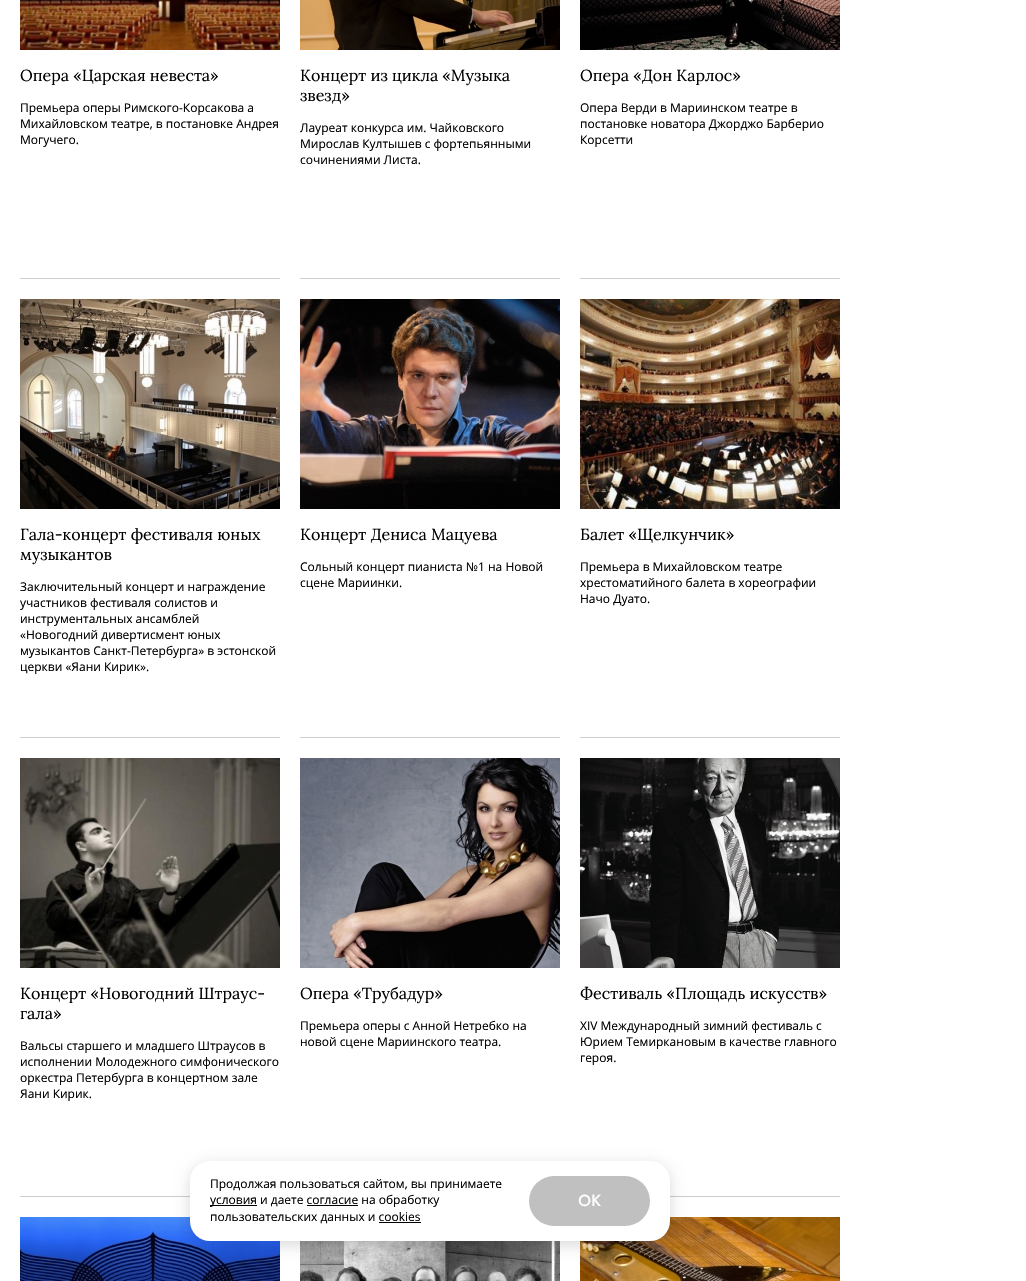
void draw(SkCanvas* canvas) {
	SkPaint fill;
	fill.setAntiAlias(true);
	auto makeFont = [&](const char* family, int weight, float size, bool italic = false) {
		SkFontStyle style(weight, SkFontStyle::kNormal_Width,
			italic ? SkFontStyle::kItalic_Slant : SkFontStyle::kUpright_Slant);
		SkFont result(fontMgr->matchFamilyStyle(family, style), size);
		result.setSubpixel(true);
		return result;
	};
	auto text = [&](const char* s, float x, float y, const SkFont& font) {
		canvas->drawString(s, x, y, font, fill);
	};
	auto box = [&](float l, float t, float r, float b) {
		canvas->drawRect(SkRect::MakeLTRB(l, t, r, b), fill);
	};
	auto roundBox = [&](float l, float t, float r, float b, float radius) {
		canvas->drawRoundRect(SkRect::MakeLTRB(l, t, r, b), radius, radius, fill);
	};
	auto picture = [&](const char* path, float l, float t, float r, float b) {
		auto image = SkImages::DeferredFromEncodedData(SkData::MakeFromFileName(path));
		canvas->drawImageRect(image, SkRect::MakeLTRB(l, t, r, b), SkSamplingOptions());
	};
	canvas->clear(0xFFFFFFFF);
	fill.setColor(0xFFCDCDCD);
	box(20, 278, 280, 279);
	picture("image0.png", 20, 0, 280, 50);
	box(300, 278, 560, 279);
	picture("image1.png", 300, 0, 560, 50);
	box(580, 278, 840, 279);
	picture("image2.png", 580, 0, 840, 50);
	box(20, 737, 280, 738);
	picture("image3.png", 20, 299, 280, 509);
	box(300, 737, 560, 738);
	picture("image4.png", 300, 299, 560, 509);
	box(580, 737, 840, 738);
	picture("image5.png", 580, 299, 840, 509);
	box(20, 1196, 190, 1197);
	picture("image6.png", 20, 758, 280, 968);
	picture("image7.png", 300, 758, 560, 968);
	box(670, 1196, 840, 1197);
	picture("image8.png", 580, 758, 840, 968);
	picture("image9.png", 20, 1217, 280, 1281);
	picture("image10.png", 300, 1241, 560, 1281);
	picture("image11.png", 580, 1217, 840, 1281);
	fill.setColor(0x26000000);
	fill.setMaskFilter(SkMaskFilter::MakeBlur(kNormal_SkBlurStyle, 7.5f));
	canvas->drawRoundRect(SkRect::MakeLTRB(190, 1165, 670, 1245), 20, 20, fill);
	fill.setMaskFilter(nullptr);
	fill.setColor(0xFFFFFFFF);
	roundBox(190, 1161, 670, 1241, 20);
	fill.setColor(0xFF000000);
	box(210, 1205, 257, 1206);
	box(307, 1205, 358, 1206);
	box(379, 1222, 421, 1223);
	fill.setColor(0xFFC0C0C0);
	roundBox(529, 1176, 650, 1226, 25);
	auto font1 = makeFont("Lora", 400, 16);
	fill.setColor(0xFF000000);
	text("Опера «Царская невеста»", 20, 81, font1);
	auto font2 = makeFont("Open Sans", 400, 12);
	text("Премьера оперы Римского-Корсакова а", 20, 112, font2);
	text("Михайловском театре, в постановке Андрея", 20, 128, font2);
	text("Могучего.", 20, 144, font2);
	text("Концерт из цикла «Музыка", 300, 81, font1);
	text("звезд»", 300, 101, font1);
	text("Лауреат конкурса им. Чайковского", 300, 132, font2);
	text("Мирослав Култышев с фортепьянными", 300, 148, font2);
	text("сочинениями Листа.", 300, 164, font2);
	text("Опера «Дон Карлос»", 580, 81, font1);
	text("Опера Верди в Мариинском театре в", 580, 112, font2);
	text("постановке новатора Джорджо Барберио", 580, 128, font2);
	text("Корсетти", 580, 144, font2);
	text("Гала-концерт фестиваля юных", 20, 540, font1);
	text("музыкантов", 20, 560, font1);
	text("Заключительный концерт и награждение", 20, 591, font2);
	text("участников фестиваля солистов и", 20, 607, font2);
	text("инструментальных ансамблей", 20, 623, font2);
	text("«Новогодний дивертисмент юных", 20, 639, font2);
	text("музыкантов Санкт-Петербурга» в эстонской", 20, 655, font2);
	text("церкви «Яани Кирик».", 20, 671, font2);
	text("Концерт Дениса Мацуева", 300, 540, font1);
	text("Сольный концерт пианиста №1 на Новой", 300, 571, font2);
	text("сцене Мариинки.", 300, 587, font2);
	text("Балет «Щелкунчик»", 580, 540, font1);
	text("Премьера в Михайловском театре", 580, 571, font2);
	text("хрестоматийного балета в хореографии", 580, 587, font2);
	text("Начо Дуато.", 580, 603, font2);
	text("Концерт «Новогодний Штраус-", 20, 999, font1);
	text("гала»", 20, 1019, font1);
	text("Вальсы старшего и младшего Штраусов в", 20, 1050, font2);
	text("исполнении Молодежного симфонического", 20, 1066, font2);
	text("оркестра Петербурга в концертном зале", 20, 1082, font2);
	text("Яани Кирик.", 20, 1098, font2);
	text("Опера «Трубадур»", 300, 999, font1);
	text("Премьера оперы с Анной Нетребко на", 300, 1030, font2);
	text("новой сцене Мариинского театра.", 300, 1046, font2);
	text("Фестиваль «Площадь искусств»", 580, 999, font1);
	text("XIV Международный зимний фестиваль с", 580, 1030, font2);
	text("Юрием Темиркановым в качестве главного", 580, 1046, font2);
	text("героя.", 580, 1062, font2);
	text("Продолжая пользоваться сайтом, вы принимаете", 210, 1188, font2);
	text("условия и даете согласие на обработку", 210, 1204, font2);
	text("пользовательских данных и cookies", 210, 1221, font2);
	auto font3 = makeFont("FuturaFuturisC", 400, 16);
	fill.setColor(0xFFFFFFFF);
	text("OK", 578, 1206, font3);
}
